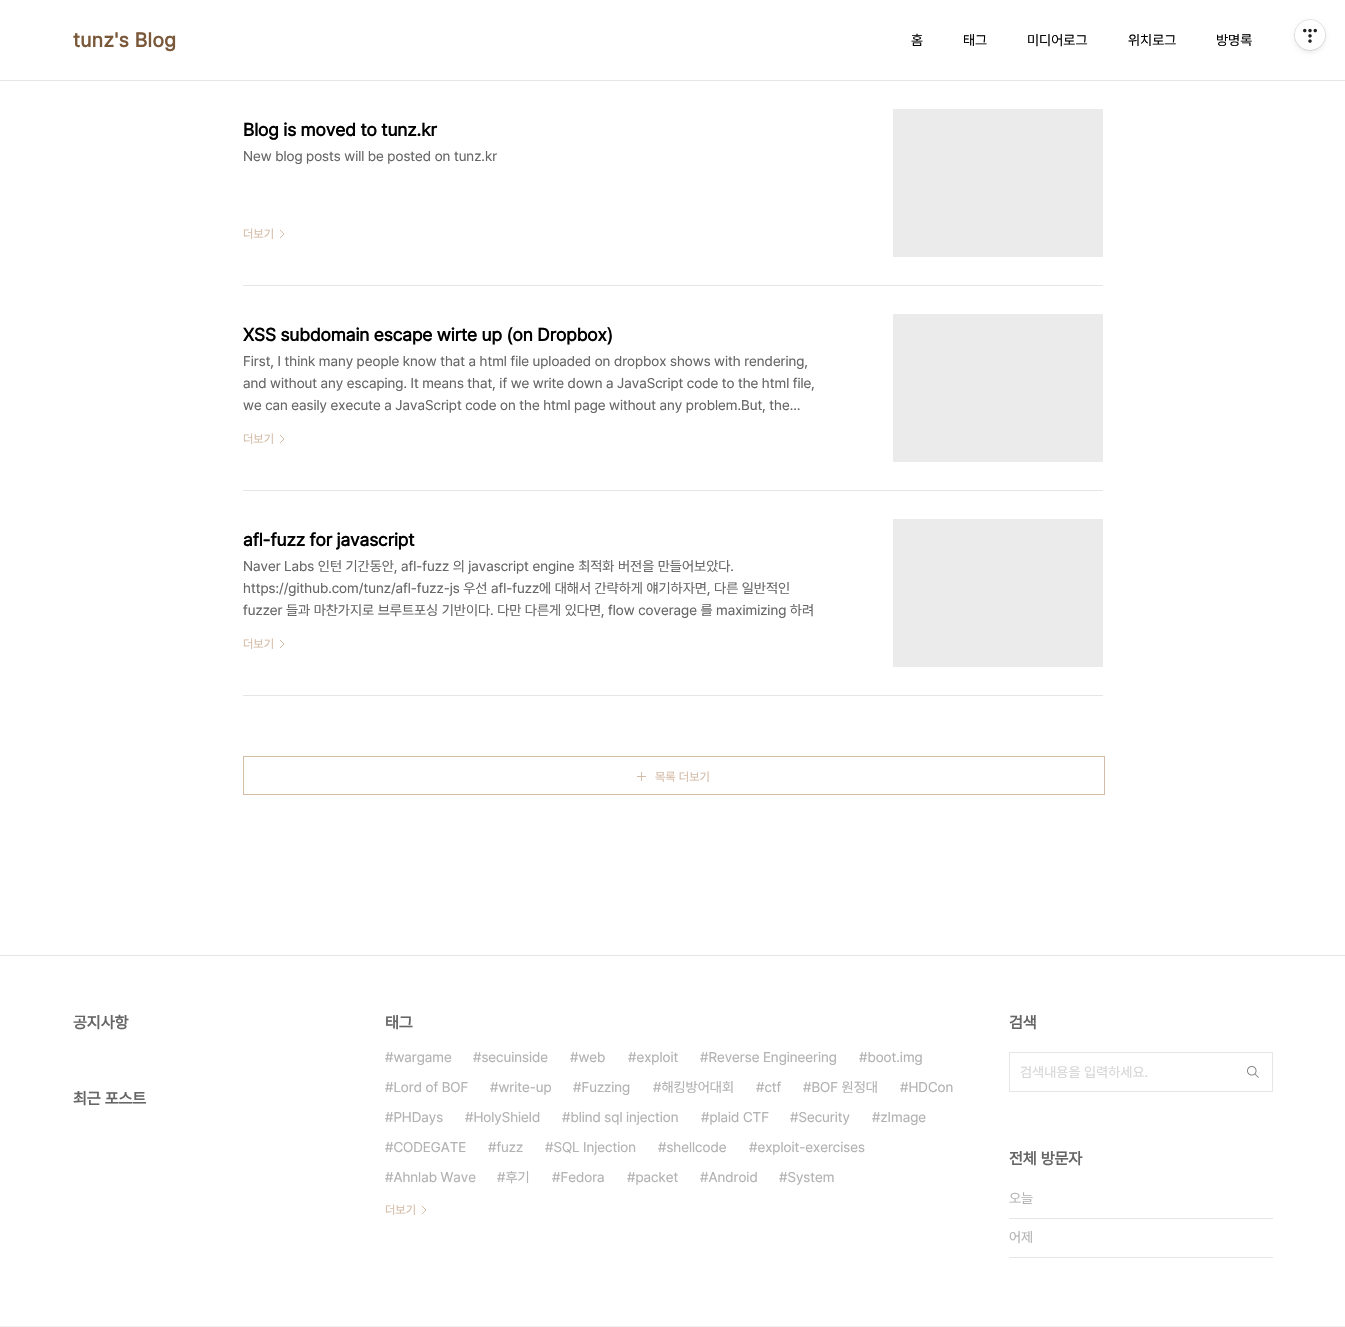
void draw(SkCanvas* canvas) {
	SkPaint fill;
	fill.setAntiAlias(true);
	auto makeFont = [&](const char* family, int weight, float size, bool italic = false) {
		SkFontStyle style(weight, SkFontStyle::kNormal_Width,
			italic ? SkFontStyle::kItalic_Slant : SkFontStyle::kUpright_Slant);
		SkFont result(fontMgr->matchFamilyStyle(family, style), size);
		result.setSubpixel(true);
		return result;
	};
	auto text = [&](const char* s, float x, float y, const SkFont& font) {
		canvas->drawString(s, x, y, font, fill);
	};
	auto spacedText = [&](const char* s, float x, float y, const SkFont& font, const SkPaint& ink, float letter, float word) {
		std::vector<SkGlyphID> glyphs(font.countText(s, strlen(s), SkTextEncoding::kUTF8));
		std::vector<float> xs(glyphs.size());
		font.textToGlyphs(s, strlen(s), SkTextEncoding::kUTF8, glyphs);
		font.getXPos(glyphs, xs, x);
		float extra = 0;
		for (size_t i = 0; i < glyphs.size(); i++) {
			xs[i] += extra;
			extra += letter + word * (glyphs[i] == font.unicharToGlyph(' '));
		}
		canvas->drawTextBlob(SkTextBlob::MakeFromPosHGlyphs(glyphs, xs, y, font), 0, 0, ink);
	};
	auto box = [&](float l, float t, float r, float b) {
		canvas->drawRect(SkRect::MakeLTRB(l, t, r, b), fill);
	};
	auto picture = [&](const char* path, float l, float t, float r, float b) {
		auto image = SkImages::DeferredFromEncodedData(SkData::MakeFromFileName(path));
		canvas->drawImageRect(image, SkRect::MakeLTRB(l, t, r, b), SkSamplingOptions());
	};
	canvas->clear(0xFFFFFFFF);
	fill.setColor(0xFFE6E6E6);
	box(0, 80, 1345, 81);
	box(243, 285, 1103, 286);
	fill.setColor(0xFFEBEBEB);
	box(893, 109, 1103, 257);
	picture("image0.png", 280, 230, 284, 238);
	fill.setColor(0xFFE6E6E6);
	box(243, 490, 1103, 491);
	fill.setColor(0xFFEBEBEB);
	box(893, 314, 1103, 462);
	picture("image0.png", 280, 435, 284, 443);
	fill.setColor(0xFFE6E6E6);
	box(243, 695, 1103, 696);
	fill.setColor(0xFFEBEBEB);
	box(893, 519, 1103, 667);
	picture("image0.png", 280, 640, 284, 648);
	fill.setStyle(SkPaint::kStroke_Style);
	fill.setStrokeWidth(1);
	fill.setColor(0xFFD4BCA7);
	canvas->drawRect(SkRect::MakeLTRB(243.5f, 756.5f, 1104.5f, 794.5f), fill);
	picture("image1.png", 637, 772, 646, 781);
	fill.setStyle(SkPaint::kFill_Style);
	fill.setColor(0xFFE6E6E6);
	box(0, 955, 1345, 956);
	picture("image0.png", 422, 1206, 426, 1214);
	fill.setStyle(SkPaint::kStroke_Style);
	canvas->drawRect(SkRect::MakeLTRB(1009.5f, 1052.5f, 1272.5f, 1091.5f), fill);
	picture("image2.png", 1247, 1066, 1259, 1078);
	fill.setStyle(SkPaint::kFill_Style);
	box(1009, 1218, 1273, 1219);
	box(1009, 1257, 1273, 1258);
	fill.setColor(0xFFF0F0F0);
	box(0, 1326, 1345, 1327);
	fill.setColor(0x1A000000);
	fill.setMaskFilter(SkMaskFilter::MakeBlur(kNormal_SkBlurStyle, 2.5f));
	canvas->drawRoundRect(SkRect::MakeLTRB(1295, 22, 1325, 52), 15, 15, fill);
	fill.setMaskFilter(nullptr);
	fill.setStyle(SkPaint::kStroke_Style);
	canvas->drawCircle(1310, 35, 15.5f, fill);
	fill.setStyle(SkPaint::kFill_Style);
	fill.setColor(0xFFFFFFFF);
	canvas->drawCircle(1310, 35, 15, fill);
	picture("image3.png", 1303, 28, 1317, 43);
	auto font1 = makeFont("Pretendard", 700, 20);
	fill.setColor(0xFF7A583A);
	spacedText("tunz's Blog", 73, 47, font1, fill, 0.5f, 0);
	auto font2 = makeFont("Pretendard", 400, 14);
	fill.setColor(0xFF000000);
	text("홈", 911, 45, font2);
	text("태그", 963, 45, font2);
	text("미디어로그", 1027, 45, font2);
	text("위치로그", 1128, 45, font2);
	text("방명록", 1216, 45, font2);
	auto font3 = makeFont("Pretendard", 700, 18);
	text("Blog is moved to tunz.kr", 243, 136, font3);
	fill.setColor(0xFF666666);
	text("New blog posts will be posted on tunz.kr", 243, 161, font2);
	auto font4 = makeFont("Pretendard", 400, 12);
	fill.setColor(0xFFD4BCA7);
	text("더보기", 243, 238, font4);
	fill.setColor(0xFF000000);
	text("XSS subdomain escape wirte up (on Dropbox)", 243, 341, font3);
	fill.setColor(0xFF666666);
	text("First, I think many people know that a html file uploaded on dropbox shows with rendering,", 243, 366, font2);
	text("and without any escaping. It means that, if we write down a JavaScript code to the html file,", 243, 388, font2);
	text("we can easily execute a JavaScript code on the html page without any problem.But, the…", 243, 410, font2);
	fill.setColor(0xFFD4BCA7);
	text("더보기", 243, 443, font4);
	fill.setColor(0xFF000000);
	text("afl-fuzz for javascript", 243, 546, font3);
	fill.setColor(0xFF666666);
	text("Naver Labs 인턴 기간동안, afl-fuzz 의 javascript engine 최적화 버전을 만들어보았다.", 243, 571, font2);
	text("https://github.com/tunz/afl-fuzz-js 우선 afl-fuzz에 대해서 간략하게 얘기하자면, 다른 일반적인", 243, 593, font2);
	text("fuzzer 들과 마찬가지로 브루트포싱 기반이다. 다만 다른게 있다면, flow coverage 를 maximizing 하려", 243, 615, font2);
	fill.setColor(0xFFD4BCA7);
	text("더보기", 243, 648, font4);
	text("목록 더보기", 655, 781, font4);
	auto font5 = makeFont("Pretendard", 700, 16);
	fill.setColor(0xFF666666);
	text("공지사항", 73, 1028, font5);
	text("최근 포스트", 73, 1104, font5);
	text("태그", 385, 1028, font5);
	fill.setColor(0xFFB2B2B2);
	text("#wargame", 385, 1062, font2);
	text("#secuinside", 473, 1062, font2);
	text("#web", 570, 1062, font2);
	text("#exploit", 628, 1062, font2);
	text("#Reverse Engineering", 700, 1062, font2);
	text("#boot.img", 859, 1062, font2);
	text("#Lord of BOF", 385, 1092, font2);
	text("#write-up", 490, 1092, font2);
	text("#Fuzzing", 573, 1092, font2);
	text("#해킹방어대회", 653, 1092, font2);
	text("#ctf", 756, 1092, font2);
	text("#BOF 원정대", 803, 1092, font2);
	text("#HDCon", 900, 1092, font2);
	text("#PHDays", 385, 1122, font2);
	text("#HolyShield", 465, 1122, font2);
	text("#blind sql injection", 562, 1122, font2);
	text("#plaid CTF", 701, 1122, font2);
	text("#Security", 790, 1122, font2);
	text("#zImage", 872, 1122, font2);
	text("#CODEGATE", 385, 1152, font2);
	text("#fuzz", 488, 1152, font2);
	text("#SQL Injection", 545, 1152, font2);
	text("#shellcode", 658, 1152, font2);
	text("#exploit-exercises", 749, 1152, font2);
	text("#Ahnlab Wave", 385, 1182, font2);
	text("#후기", 497, 1182, font2);
	text("#Fedora", 552, 1182, font2);
	text("#packet", 627, 1182, font2);
	text("#Android", 700, 1182, font2);
	text("#System", 779, 1182, font2);
	fill.setColor(0xFFD4BCA7);
	text("더보기", 385, 1214, font4);
	fill.setColor(0xFF666666);
	text("검색", 1009, 1028, font5);
	fill.setColor(0xFFD6D6D6);
	text("검색내용을 입력하세요.", 1020, 1077, font2);
	fill.setColor(0xFF666666);
	text("전체 방문자", 1009, 1164, font5);
	fill.setColor(0xFFB2B2B2);
	text("오늘", 1009, 1203, font2);
	text("어제", 1009, 1242, font2);
}
